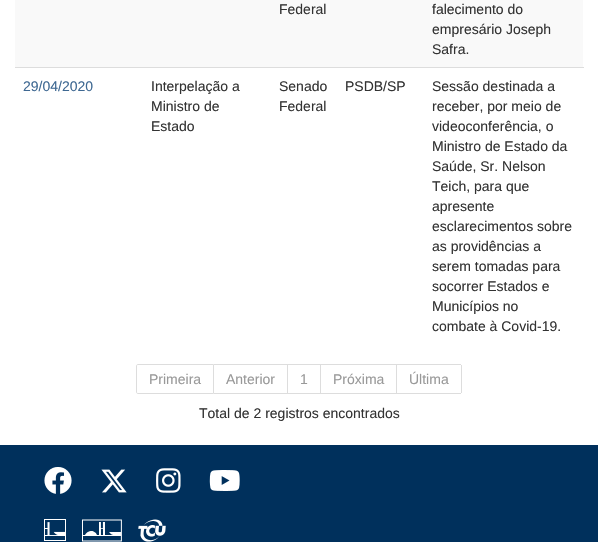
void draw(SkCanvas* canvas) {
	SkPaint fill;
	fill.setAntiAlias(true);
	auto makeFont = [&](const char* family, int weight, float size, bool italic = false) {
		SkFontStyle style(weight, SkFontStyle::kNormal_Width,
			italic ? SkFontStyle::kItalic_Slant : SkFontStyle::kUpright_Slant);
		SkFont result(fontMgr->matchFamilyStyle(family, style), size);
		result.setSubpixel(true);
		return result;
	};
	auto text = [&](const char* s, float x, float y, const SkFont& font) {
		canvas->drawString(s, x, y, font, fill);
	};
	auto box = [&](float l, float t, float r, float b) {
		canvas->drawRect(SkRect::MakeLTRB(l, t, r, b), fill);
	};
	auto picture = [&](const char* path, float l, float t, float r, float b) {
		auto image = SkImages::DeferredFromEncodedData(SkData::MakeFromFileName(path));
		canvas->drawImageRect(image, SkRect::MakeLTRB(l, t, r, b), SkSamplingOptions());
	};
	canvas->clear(0xFFFFFFFF);
	fill.setColor(0xFFF9F9F9);
	box(15, 0, 583, 67);
	fill.setColor(0xFFDDDDDD);
	box(15, 67, 584, 68);
	fill.setStyle(SkPaint::kStroke_Style);
	fill.setStrokeWidth(1);
	canvas->drawPath(SkPathBuilder().moveTo(138, 364.5f).lineTo(213.5f, 364.5f).lineTo(213.5f, 393.5f).lineTo(138, 393.5f).cubicTo(137, 393.5f, 136.5f, 393, 136.5f, 392).lineTo(136.5f, 366).cubicTo(136.5f, 365, 137, 364.5f, 138, 364.5f).close().detach(), fill);
	fill.setStyle(SkPaint::kFill_Style);
	box(214, 364, 461, 365);
	box(287, 364, 288, 394);
	box(214, 393, 288, 394);
	box(320, 364, 321, 394);
	box(288, 393, 321, 394);
	box(396, 364, 397, 394);
	box(321, 393, 461, 394);
	box(461, 365, 462, 393);
	fill.setColor(0xFF00305C);
	box(0, 445, 598, 542);
	picture("image0.png", 44, 467, 72, 494);
	picture("image1.png", 101, 469, 127, 493);
	picture("image2.png", 156, 468, 181, 493);
	picture("image3.png", 209, 470, 240, 491);
	picture("image4.png", 44, 519, 66, 541);
	picture("image5.png", 82, 519, 122, 542);
	picture("image6.png", 138, 519, 166, 542);
	auto font1 = makeFont("Liberation Sans", 400, 14);
	fill.setColor(0xFF333333);
	text("Federal", 279, 14, font1);
	text("falecimento do", 432, 14, font1);
	text("empresário Joseph", 432, 34, font1);
	text("Safra.", 432, 54, font1);
	fill.setColor(0xFF3E6892);
	text("29/04/2020", 23, 91, font1);
	fill.setColor(0xFF333333);
	text("Interpelação a", 151, 91, font1);
	text("Ministro de", 151, 111, font1);
	text("Estado", 151, 131, font1);
	text("Senado", 279, 91, font1);
	text("Federal", 279, 111, font1);
	text("PSDB/SP", 345, 91, font1);
	text("Sessão destinada a", 432, 91, font1);
	text("receber, por meio de", 432, 111, font1);
	text("videoconferência, o", 432, 131, font1);
	text("Ministro de Estado da", 432, 151, font1);
	text("Saúde, Sr. Nelson", 432, 171, font1);
	text("Teich, para que", 432, 191, font1);
	text("apresente", 432, 211, font1);
	text("esclarecimentos sobre", 432, 231, font1);
	text("as providências a", 432, 251, font1);
	text("serem tomadas para", 432, 271, font1);
	text("socorrer Estados e", 432, 291, font1);
	text("Municípios no", 432, 311, font1);
	text("combate à Covid-19.", 432, 331, font1);
	fill.setColor(0xFF999999);
	text("Primeira", 149, 384, font1);
	text("Anterior", 226, 384, font1);
	text("1", 300, 384, font1);
	text("Próxima", 333, 384, font1);
	text("Última", 409, 384, font1);
	fill.setColor(0xFF333333);
	text("Total de 2 registros encontrados", 199, 418, font1);
}
